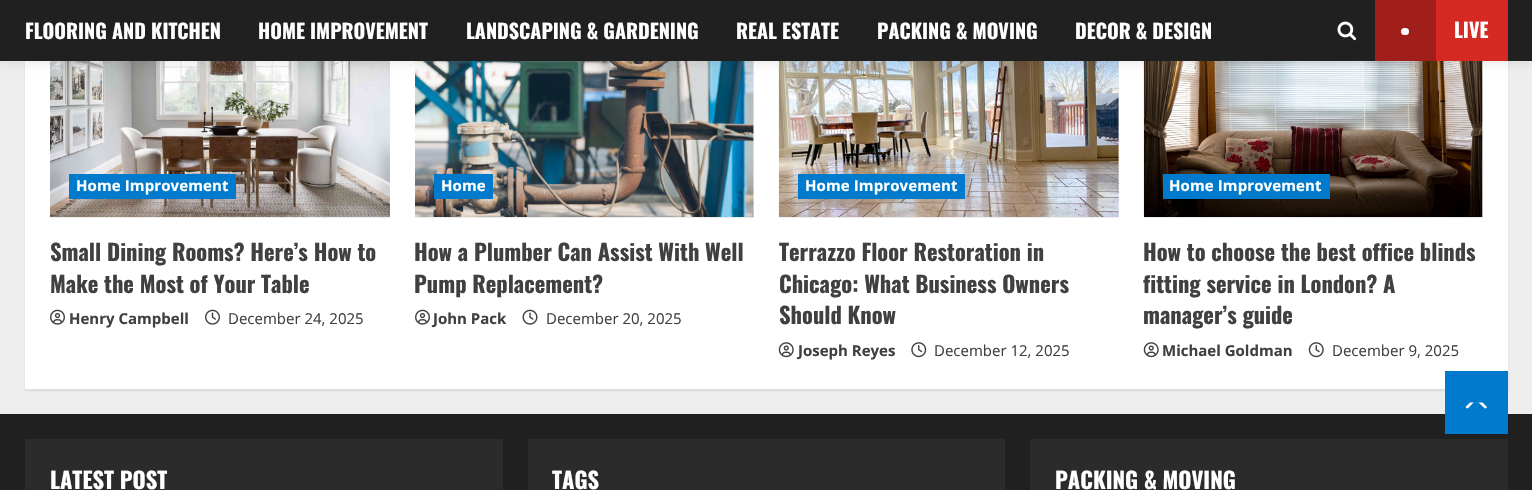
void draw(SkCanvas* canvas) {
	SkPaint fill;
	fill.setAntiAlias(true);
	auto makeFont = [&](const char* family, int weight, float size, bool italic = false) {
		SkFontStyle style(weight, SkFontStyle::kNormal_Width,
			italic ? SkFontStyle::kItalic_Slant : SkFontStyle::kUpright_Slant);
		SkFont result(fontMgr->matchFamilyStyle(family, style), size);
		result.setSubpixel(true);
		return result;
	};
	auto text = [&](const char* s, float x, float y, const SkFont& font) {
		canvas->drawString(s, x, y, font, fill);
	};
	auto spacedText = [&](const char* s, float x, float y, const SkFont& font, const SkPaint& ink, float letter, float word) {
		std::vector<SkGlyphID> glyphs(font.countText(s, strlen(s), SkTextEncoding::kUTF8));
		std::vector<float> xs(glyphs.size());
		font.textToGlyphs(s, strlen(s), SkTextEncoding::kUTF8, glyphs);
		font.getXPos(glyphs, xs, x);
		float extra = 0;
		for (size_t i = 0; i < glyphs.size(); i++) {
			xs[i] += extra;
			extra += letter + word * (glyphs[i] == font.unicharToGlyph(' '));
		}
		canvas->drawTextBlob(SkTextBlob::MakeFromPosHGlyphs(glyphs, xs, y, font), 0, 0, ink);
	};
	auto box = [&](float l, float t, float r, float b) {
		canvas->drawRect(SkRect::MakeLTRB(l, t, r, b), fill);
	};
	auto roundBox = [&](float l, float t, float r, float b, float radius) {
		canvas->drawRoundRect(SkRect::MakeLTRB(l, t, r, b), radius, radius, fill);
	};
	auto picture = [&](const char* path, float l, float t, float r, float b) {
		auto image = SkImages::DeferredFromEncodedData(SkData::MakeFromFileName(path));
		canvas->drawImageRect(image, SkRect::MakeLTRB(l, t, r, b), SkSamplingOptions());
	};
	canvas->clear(0xFFEEEEEE);
	fill.setColor(0x14000000);
	fill.setMaskFilter(SkMaskFilter::MakeBlur(kNormal_SkBlurStyle, 1));
	canvas->drawRect(SkRect::MakeLTRB(25, -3, 1508, 391), fill);
	fill.setMaskFilter(nullptr);
	fill.setColor(0xFFFFFFFF);
	box(25, 61, 1508, 389);
	picture("image1.png", 50, 61, 390, 217);
	fill.setColor(0xFFECECEC);
	box(415, 61, 754, 218);
	picture("image4.png", 415, 61, 754, 217);
	box(779, 61, 1119, 218);
	picture("image6.png", 778, 61, 1119, 217);
	box(1144, 61, 1483, 218);
	picture("image9.png", 1143, 61, 1483, 217);
	fill.setColor(0x14000000);
	fill.setMaskFilter(SkMaskFilter::MakeBlur(kNormal_SkBlurStyle, 5));
	canvas->drawRect(SkRect::MakeLTRB(0, 3, 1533, 64), fill);
	fill.setMaskFilter(nullptr);
	fill.setColor(0xFF202020);
	box(0, 0, 1532, 61);
	picture("image0.png", 1337, 21, 1357, 41);
	fill.setColor(0xFFD72924);
	box(1436, 0, 1508, 61);
	fill.setColor(0xFFA11F1B);
	box(1375, 0, 1436, 61);
	fill.setColor(0xFFFFFFFF);
	roundBox(1401, 28, 1409, 35, 3.5f);
	fill.setColor(0xFFECECEC);
	box(50, 217, 390, 218);
	fill.setColor(0xFF007ACC);
	box(69, 174, 236, 199);
	picture("image2.png", 50, 309, 65, 325);
	picture("image3.png", 205, 309, 220, 325);
	box(434, 174, 493, 199);
	picture("image2.png", 415, 309, 430, 325);
	picture("image5.png", 522, 309, 538, 325);
	box(798, 174, 965, 199);
	picture("image7.png", 778, 342, 794, 358);
	picture("image8.png", 911, 342, 927, 358);
	box(1163, 174, 1330, 199);
	picture("image7.png", 1143, 342, 1159, 358);
	picture("image10.png", 1308, 342, 1324, 358);
	fill.setColor(0xFF202020);
	box(0, 414, 1532, 490);
	fill.setColor(0xFF2B2B2B);
	box(25, 439, 503, 490);
	box(528, 439, 1005, 490);
	box(1030, 439, 1508, 490);
	fill.setColor(0xFF007ACC);
	box(1445, 371, 1508, 434);
	fill.setColor(0xFFFFFFFF);
	canvas->drawPath(SkPathBuilder().moveTo(1468.5f, 409).cubicTo(1467, 408.5f, 1466.5f, 408, 1465.5f, 407).lineTo(1470, 402.5f).lineTo(1482.5f, 402.5f).lineTo(1487, 407).cubicTo(1486.5f, 408, 1485.5f, 408.5f, 1484, 409).close().detach(), fill);
	fill.setColor(0xFF007ACC);
	canvas->drawPath(SkPathBuilder().moveTo(1489, 412.5f).lineTo(1464, 412.5f).lineTo(1476, 400).close().detach(), fill);
	auto font1 = makeFont("Oswald", 700, 20);
	fill.setColor(0xFFFFFFFF);
	text("FLOORING AND KITCHEN", 25, 39, font1);
	text("HOME IMPROVEMENT", 258, 39, font1);
	text("LANDSCAPING & GARDENING", 466, 39, font1);
	text("REAL ESTATE", 736, 39, font1);
	text("PACKING & MOVING", 877, 39, font1);
	text("DECOR & DESIGN", 1075, 39, font1);
	text("LIVE", 1454, 38, font1);
	auto font2 = makeFont("Open Sans", 700, 15);
	spacedText("Home Improvement", 76, 191, font2, fill, 0.1f, 0);
	auto font3 = makeFont("Oswald", 700, 22.5f);
	fill.setColor(0xFF404040);
	text("Small Dining Rooms? Here’s How to", 50, 261, font3);
	text("Make the Most of Your Table", 50, 293, font3);
	text("Henry Campbell", 69, 324, font2);
	auto font4 = makeFont("Open Sans", 400, 15);
	text("December 24, 2025", 228, 324, font4);
	fill.setColor(0xFFFFFFFF);
	spacedText("Home", 441, 191, font2, fill, 0.1f, 0);
	fill.setColor(0xFF404040);
	text("How a Plumber Can Assist With Well", 414, 261, font3);
	text("Pump Replacement?", 414, 293, font3);
	text("John Pack", 433, 324, font2);
	text("December 20, 2025", 546, 324, font4);
	fill.setColor(0xFFFFFFFF);
	spacedText("Home Improvement", 805, 191, font2, fill, 0.1f, 0);
	fill.setColor(0xFF404040);
	text("Terrazzo Floor Restoration in", 779, 261, font3);
	text("Chicago: What Business Owners", 779, 293, font3);
	text("Should Know", 779, 324, font3);
	text("Joseph Reyes", 798, 356, font2);
	text("December 12, 2025", 934, 356, font4);
	fill.setColor(0xFFFFFFFF);
	spacedText("Home Improvement", 1169, 191, font2, fill, 0.1f, 0);
	fill.setColor(0xFF404040);
	text("How to choose the best office blinds", 1143, 261, font3);
	text("fitting service in London? A", 1143, 293, font3);
	text("manager’s guide", 1143, 324, font3);
	text("Michael Goldman", 1162, 356, font2);
	text("December 9, 2025", 1332, 356, font4);
	fill.setColor(0xFFFFFFFF);
	text("LATEST POST", 50, 489, font3);
	text("TAGS", 552, 489, font3);
	text("PACKING & MOVING", 1055, 489, font3);
}
